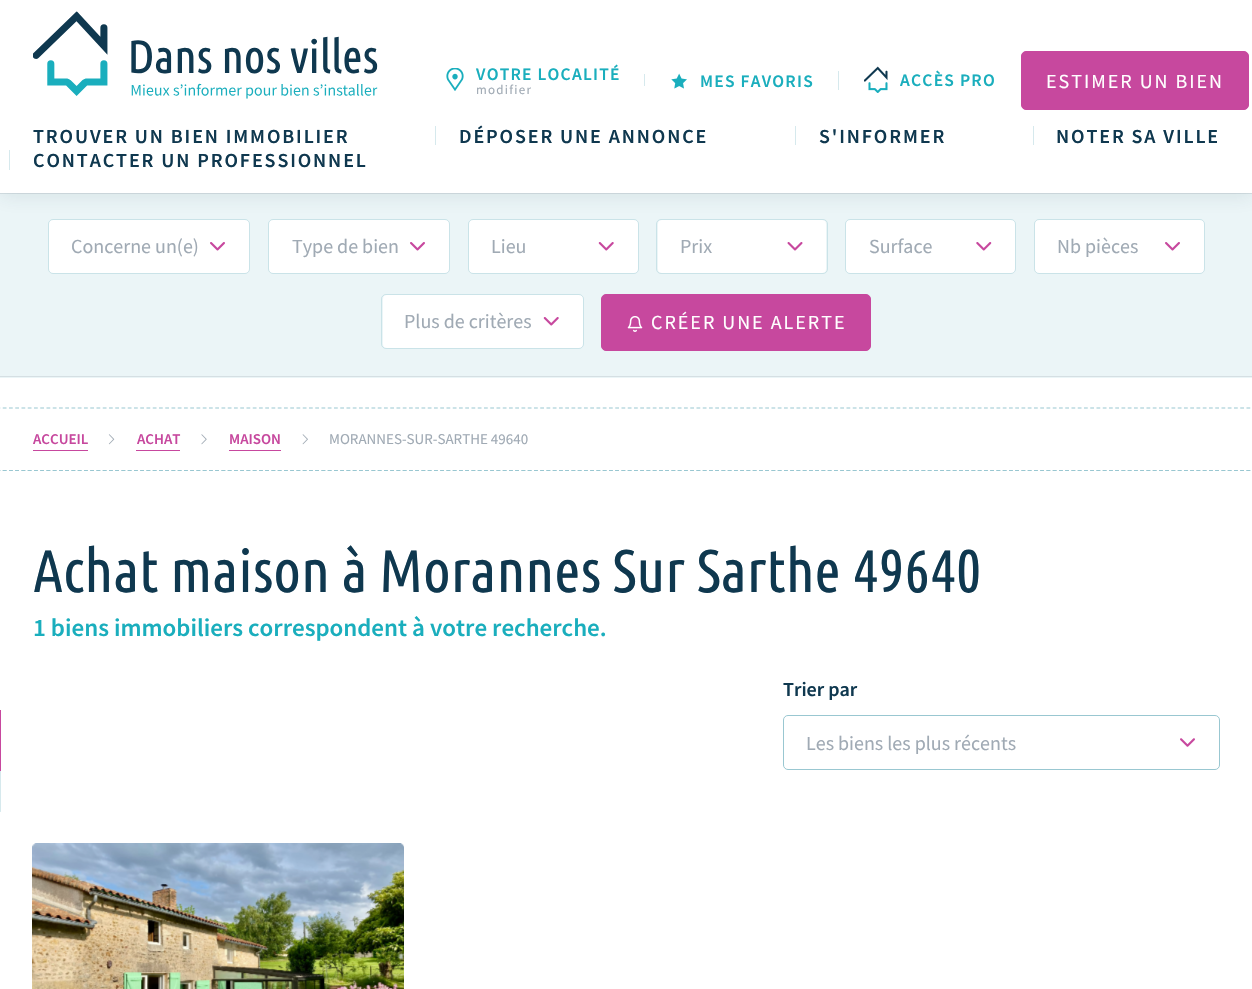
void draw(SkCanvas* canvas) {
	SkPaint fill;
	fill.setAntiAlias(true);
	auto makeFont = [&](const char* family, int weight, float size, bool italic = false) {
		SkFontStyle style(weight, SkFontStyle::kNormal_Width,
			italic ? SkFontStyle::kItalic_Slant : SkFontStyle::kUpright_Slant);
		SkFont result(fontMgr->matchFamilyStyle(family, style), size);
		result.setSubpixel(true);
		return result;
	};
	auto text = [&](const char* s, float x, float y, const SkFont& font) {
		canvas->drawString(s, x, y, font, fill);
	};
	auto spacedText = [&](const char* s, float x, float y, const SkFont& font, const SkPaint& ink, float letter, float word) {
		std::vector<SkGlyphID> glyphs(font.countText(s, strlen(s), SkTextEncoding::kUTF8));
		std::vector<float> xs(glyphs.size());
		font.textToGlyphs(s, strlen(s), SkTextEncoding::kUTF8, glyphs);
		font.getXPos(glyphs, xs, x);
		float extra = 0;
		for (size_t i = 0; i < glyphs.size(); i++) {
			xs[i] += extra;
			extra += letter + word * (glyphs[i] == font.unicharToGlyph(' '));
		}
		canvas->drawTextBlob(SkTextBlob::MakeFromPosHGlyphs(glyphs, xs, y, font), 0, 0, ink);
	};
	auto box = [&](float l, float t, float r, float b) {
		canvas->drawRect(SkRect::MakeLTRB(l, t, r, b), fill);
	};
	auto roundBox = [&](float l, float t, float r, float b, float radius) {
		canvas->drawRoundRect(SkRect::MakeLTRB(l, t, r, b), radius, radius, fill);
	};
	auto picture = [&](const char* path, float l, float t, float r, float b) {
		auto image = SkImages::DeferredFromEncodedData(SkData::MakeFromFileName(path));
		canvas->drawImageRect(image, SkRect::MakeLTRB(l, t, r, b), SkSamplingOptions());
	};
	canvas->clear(0xFFFFFFFF);
	fill.setColor(0xFFEBF5F7);
	box(0, 194, 1252, 378);
	fill.setColor(0xFFD5DFE3);
	box(0, 193, 1252, 194);
	fill.setColor(0xFFFFFFFF);
	roundBox(49, 220, 249, 273, 4);
	fill.setStyle(SkPaint::kStroke_Style);
	fill.setStrokeWidth(1);
	fill.setColor(0x6699C7D1);
	canvas->drawRoundRect(SkRect::MakeLTRB(48.5f, 219.5f, 249.5f, 273.5f), 4.5f, 4.5f, fill);
	fill.setStyle(SkPaint::kFill_Style);
	fill.setColor(0xFFFFFFFF);
	roundBox(269, 220, 449, 273, 4);
	fill.setStyle(SkPaint::kStroke_Style);
	fill.setColor(0x6699C7D1);
	canvas->drawRoundRect(SkRect::MakeLTRB(268.5f, 219.5f, 449.5f, 273.5f), 4.5f, 4.5f, fill);
	fill.setStyle(SkPaint::kFill_Style);
	fill.setColor(0xFFFFFFFF);
	roundBox(469, 220, 638, 273, 4);
	fill.setStyle(SkPaint::kStroke_Style);
	fill.setColor(0x6699C7D1);
	canvas->drawRoundRect(SkRect::MakeLTRB(468.5f, 219.5f, 638.5f, 273.5f), 4.5f, 4.5f, fill);
	fill.setStyle(SkPaint::kFill_Style);
	fill.setColor(0xFFFFFFFF);
	roundBox(658, 220, 826, 273, 4);
	fill.setStyle(SkPaint::kStroke_Style);
	fill.setColor(0xFFCAE3E8);
	canvas->drawRoundRect(SkRect::MakeLTRB(656.5f, 219.5f, 827.5f, 273.5f), 4.5f, 4.5f, fill);
	fill.setStyle(SkPaint::kFill_Style);
	fill.setColor(0xFFFFFFFF);
	roundBox(846, 220, 1015, 273, 4);
	fill.setStyle(SkPaint::kStroke_Style);
	fill.setColor(0x6699C7D1);
	canvas->drawRoundRect(SkRect::MakeLTRB(845.5f, 219.5f, 1015.5f, 273.5f), 4.5f, 4.5f, fill);
	fill.setStyle(SkPaint::kFill_Style);
	fill.setColor(0xFFFFFFFF);
	roundBox(1035, 220, 1204, 273, 4);
	fill.setStyle(SkPaint::kStroke_Style);
	fill.setColor(0x6699C7D1);
	canvas->drawRoundRect(SkRect::MakeLTRB(1034.5f, 219.5f, 1204.5f, 273.5f), 4.5f, 4.5f, fill);
	fill.setStyle(SkPaint::kFill_Style);
	fill.setColor(0x1A0F384F);
	fill.setMaskFilter(SkMaskFilter::MakeBlur(kNormal_SkBlurStyle, 9.5f));
	canvas->drawRect(SkRect::MakeLTRB(0, 4, 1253, 196), fill);
	fill.setMaskFilter(nullptr);
	fill.setColor(0xFFFFFFFF);
	box(0, 0, 1252, 193);
	picture("image0.png", 33, 11, 378, 99);
	picture("image1.png", 446, 68, 464, 91);
	fill.setColor(0xFFD6E9ED);
	box(644, 74, 645, 86);
	picture("image2.png", 671, 73, 687, 89);
	box(838, 71, 839, 90);
	picture("image3.png", 864, 66, 888, 93);
	fill.setColor(0xFFC7489E);
	canvas->drawRoundRect(SkRect::MakeLTRB(1021.5f, 51.5f, 1248.5f, 109.5f), 4.5f, 4.5f, fill);
	fill.setStyle(SkPaint::kStroke_Style);
	canvas->drawRoundRect(SkRect::MakeLTRB(1021.5f, 51.5f, 1248.5f, 109.5f), 4.5f, 4.5f, fill);
	fill.setStyle(SkPaint::kFill_Style);
	fill.setColor(0xFFD6E9ED);
	box(435, 126, 436, 145);
	box(795, 126, 796, 145);
	box(1033, 126, 1034, 145);
	box(9, 150, 10, 170);
	fill.setColor(0xFFD5DFE3);
	box(0, 376, 1252, 377);
	picture("image4.png", 210, 242, 225, 251);
	picture("image4.png", 410, 242, 425, 251);
	picture("image5.png", 598, 242, 614, 251);
	picture("image6.png", 787, 242, 803, 251);
	picture("image7.png", 976, 242, 992, 251);
	picture("image4.png", 1165, 242, 1180, 251);
	fill.setColor(0xFFFFFFFF);
	roundBox(383, 295, 583, 348, 4);
	fill.setStyle(SkPaint::kStroke_Style);
	fill.setColor(0x6699C7D1);
	canvas->drawRoundRect(SkRect::MakeLTRB(381.5f, 294.5f, 583.5f, 348.5f), 4.5f, 4.5f, fill);
	picture("image5.png", 543, 317, 559, 326);
	fill.setStyle(SkPaint::kFill_Style);
	fill.setColor(0xFFC7489E);
	canvas->drawRoundRect(SkRect::MakeLTRB(601.5f, 294.5f, 870.5f, 350.5f), 4.5f, 4.5f, fill);
	fill.setStyle(SkPaint::kStroke_Style);
	canvas->drawRoundRect(SkRect::MakeLTRB(601.5f, 294.5f, 870.5f, 350.5f), 4.5f, 4.5f, fill);
	picture("image8.png", 627, 316, 643, 332);
	fill.setStrokeWidth(1.2f);
	fill.setColor(0xFF99C7D1);
	fill.setPathEffect(SkDashPathEffect::Make({{3.75f, 2.5f}}, 0));
	canvas->drawPath(SkPathBuilder().moveTo(-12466, 408).lineTo(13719, 408).detach(), fill);
	fill.setPathEffect(nullptr);
	fill.setPathEffect(SkDashPathEffect::Make({{3.75f, 2.5f}}, 0));
	canvas->drawPath(SkPathBuilder().moveTo(-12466, 470.5f).lineTo(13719, 470.5f).detach(), fill);
	fill.setPathEffect(nullptr);
	fill.setStyle(SkPaint::kFill_Style);
	fill.setColor(0xFFC7489E);
	box(33, 450, 88, 451);
	picture("image9.png", 108, 434, 115, 445);
	box(136, 450, 180, 451);
	picture("image10.png", 201, 434, 207, 445);
	box(229, 450, 281, 451);
	picture("image11.png", 302, 434, 308, 445);
	fill.setStyle(SkPaint::kStroke_Style);
	fill.setColor(0xFF99C7D1);
	fill.setPathEffect(SkDashPathEffect::Make({{3.75f, 2.5f}}, 0));
	canvas->drawPath(SkPathBuilder().moveTo(-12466, 470.5f).lineTo(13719, 470.5f).detach(), fill);
	fill.setPathEffect(nullptr);
	fill.setStyle(SkPaint::kFill_Style);
	fill.setColor(0xFFC7489E);
	box(0, 710, 1, 771);
	fill.setColor(0xFFD6E9ED);
	canvas->drawPath(SkPathBuilder().moveTo(1, 771).lineTo(1, 812).lineTo(0, 811).lineTo(0, 771).close().detach(), fill);
	fill.setColor(0xFFCAE2E7);
	canvas->drawPath(SkPathBuilder().moveTo(1, 812).lineTo(-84, 812).lineTo(-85, 811).lineTo(0, 811).close().detach(), fill);
	fill.setStyle(SkPaint::kStroke_Style);
	fill.setStrokeWidth(1);
	fill.setColor(0xFF99C7D1);
	canvas->drawRoundRect(SkRect::MakeLTRB(783.5f, 715.5f, 1219.5f, 769.5f), 4.5f, 4.5f, fill);
	picture("image12.png", 1180, 738, 1195, 747);
	picture("image13.png", 32, 843, 404, 989);
	auto font1 = makeFont("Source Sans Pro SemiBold", 600, 17.5f);
	fill.setStyle(SkPaint::kFill_Style);
	fill.setColor(0xFF1AAEBD);
	spacedText("VOTRE LOCALITÉ", 476, 80, font1, fill, 1.25f, 0);
	auto font2 = makeFont("Source Sans Pro", 400, 13);
	fill.setColor(0xFFA0AAB4);
	spacedText("modifier", 476, 94, font2, fill, 1.25f, 0);
	fill.setColor(0xFF1AAEBD);
	spacedText("MES FAVORIS", 700, 87, font1, fill, 1.25f, 0);
	spacedText("ACCÈS PRO", 900, 86, font1, fill, 1.25f, 0);
	auto font3 = makeFont("Source Sans Pro", 400, 20);
	fill.setColor(0xFFFFFFFF);
	spacedText("ESTIMER UN BIEN", 1046, 88, font3, fill, 2, 0);
	auto font4 = makeFont("Source Sans Pro SemiBold", 600, 20);
	fill.setColor(0xFF0F384F);
	spacedText("TROUVER UN BIEN IMMOBILIER", 33, 143, font4, fill, 1.9f, 0);
	spacedText("DÉPOSER UNE ANNONCE", 459, 143, font4, fill, 1.9f, 0);
	spacedText("S'INFORMER", 819, 143, font4, fill, 1.9f, 0);
	spacedText("NOTER SA VILLE", 1056, 143, font4, fill, 1.9f, 0);
	spacedText("CONTACTER UN PROFESSIONNEL", 33, 167, font4, fill, 1.9f, 0);
	fill.setColor(0xFFA0AAB4);
	text("Concerne un(e)", 71, 253, font3);
	text("Type de bien", 292, 253, font3);
	text("Lieu", 491, 253, font3);
	text("Prix", 680, 253, font3);
	text("Surface", 869, 253, font3);
	text("Nb pièces", 1057, 253, font3);
	text("Plus de critères", 404, 328, font3);
	fill.setColor(0xFFFFFFFF);
	spacedText("CRÉER UNE ALERTE", 651, 329, font3, fill, 2, 0);
	auto font5 = makeFont("Source Sans Pro SemiBold", 600, 15);
	fill.setColor(0xFFC7489E);
	text("ACCUEIL", 33, 444, font5);
	text("ACHAT", 137, 444, font5);
	text("MAISON", 229, 444, font5);
	auto font6 = makeFont("Source Sans Pro", 400, 15);
	fill.setColor(0xFFA0AAB4);
	text("MORANNES-SUR-SARTHE 49640", 329, 444, font6);
	auto font7 = makeFont("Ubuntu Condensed", 400, 60);
	fill.setColor(0xFF0F384F);
	text("Achat maison à Morannes Sur Sarthe 49640", 33, 592, font7);
	auto font8 = makeFont("Source Sans Pro SemiBold", 600, 25);
	fill.setColor(0xFF1AAEBD);
	text("1 biens immobiliers correspondent à votre recherche.", 33, 636, font8);
	fill.setColor(0xFF0F384F);
	text("Trier par", 783, 696, font4);
	fill.setColor(0xFFA0AAB4);
	text("Les biens les plus récents", 806, 750, font3);
}
